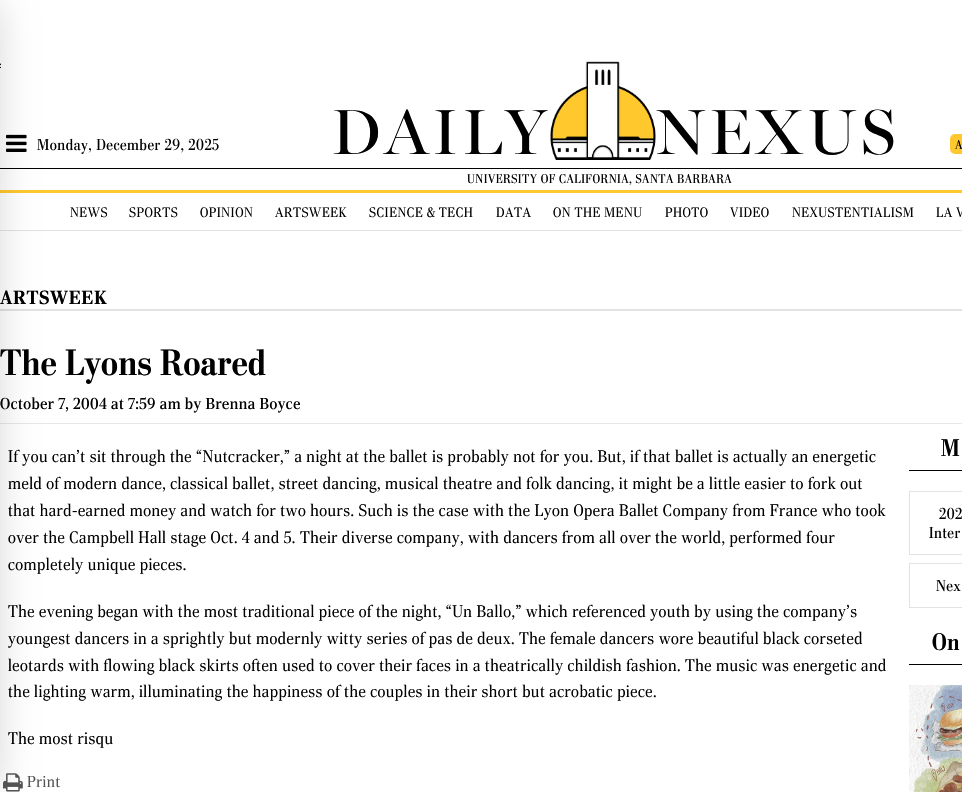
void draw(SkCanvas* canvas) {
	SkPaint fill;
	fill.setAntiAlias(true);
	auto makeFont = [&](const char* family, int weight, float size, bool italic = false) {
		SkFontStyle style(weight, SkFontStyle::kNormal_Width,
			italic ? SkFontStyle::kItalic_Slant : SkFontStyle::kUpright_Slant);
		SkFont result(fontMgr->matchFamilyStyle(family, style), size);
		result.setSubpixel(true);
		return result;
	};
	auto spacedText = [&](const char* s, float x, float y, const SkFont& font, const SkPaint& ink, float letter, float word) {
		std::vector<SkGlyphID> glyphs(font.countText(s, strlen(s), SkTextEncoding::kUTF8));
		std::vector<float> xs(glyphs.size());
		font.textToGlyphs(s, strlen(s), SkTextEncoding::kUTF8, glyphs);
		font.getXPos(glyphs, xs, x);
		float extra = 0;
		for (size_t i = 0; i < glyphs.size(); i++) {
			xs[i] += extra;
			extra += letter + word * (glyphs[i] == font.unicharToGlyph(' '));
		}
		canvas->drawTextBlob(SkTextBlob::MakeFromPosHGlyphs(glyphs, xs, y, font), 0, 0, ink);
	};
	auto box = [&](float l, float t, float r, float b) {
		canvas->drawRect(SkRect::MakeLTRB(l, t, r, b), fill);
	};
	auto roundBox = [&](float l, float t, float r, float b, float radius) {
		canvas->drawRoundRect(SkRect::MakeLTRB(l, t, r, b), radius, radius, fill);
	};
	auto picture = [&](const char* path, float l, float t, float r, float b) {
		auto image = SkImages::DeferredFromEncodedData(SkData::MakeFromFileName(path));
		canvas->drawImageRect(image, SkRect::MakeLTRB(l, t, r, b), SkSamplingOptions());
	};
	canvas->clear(0xFFFFFFFF);
	picture("image1.png", 6, 134, 27, 152);
	fill.setColor(0xFF000000);
	box(0, 168, 962, 169);
	fill.setColor(0xFFFFC82D);
	box(0, 190, 962, 193);
	fill.setColor(0xFFE2E2E2);
	box(0, 230, 962, 231);
	box(0, 309, 962, 311);
	fill.setColor(0xFFE7E7E7);
	box(0, 423, 962, 424);
	picture("image3.png", 3, 773, 23, 792);
	fill.setColor(0x1F000000);
	fill.setMaskFilter(SkMaskFilter::MakeBlur(kNormal_SkBlurStyle, 16));
	canvas->drawRoundRect(SkRect::MakeLTRB(-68, 0, 4, 792), 20, 20, fill);
	fill.setMaskFilter(nullptr);
	picture("image0.png", 0, 63, 1, 68);
	picture("image2.png", 550, 61, 656, 160);
	fill.setColor(0xFFFFC82E);
	roundBox(950, 134, 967, 154, 5);
	fill.setColor(0xFF000000);
	box(909, 470, 962, 471);
	fill.setStyle(SkPaint::kStroke_Style);
	fill.setStrokeWidth(1);
	fill.setColor(0xFFE2E2E2);
	canvas->drawRect(SkRect::MakeLTRB(909.5f, 491.5f, 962.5f, 554.5f), fill);
	canvas->drawRect(SkRect::MakeLTRB(909.5f, 563.5f, 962.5f, 607.5f), fill);
	fill.setStyle(SkPaint::kFill_Style);
	fill.setColor(0xFF000000);
	box(909, 664, 962, 665);
	picture("image4.png", 909, 685, 962, 792);
	auto font1 = makeFont("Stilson", 400, 16);
	spacedText("Monday, December 29, 2025", 37, 150, font1, fill, 0.5f, 0);
	auto font2 = makeFont("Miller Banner", 400, 64);
	spacedText("DAILY", 331, 154, font2, fill, 4, 0);
	spacedText("NEXUS", 656, 154, font2, fill, 4, 0);
	auto font3 = makeFont("Stilson", 400, 13);
	spacedText("A", 955, 149, font3, fill, 0.5f, 0);
	auto font4 = makeFont("Stilson", 400, 12.8f);
	spacedText("UNIVERSITY OF CALIFORNIA, SANTA BARBARA", 467, 183, font4, fill, 0.5f, 0);
	auto font5 = makeFont("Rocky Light", 300, 13.75f);
	spacedText("NEWS", 70, 217, font5, fill, 0.5f, 0);
	spacedText("SPORTS", 129, 217, font5, fill, 0.5f, 0);
	spacedText("OPINION", 200, 217, font5, fill, 0.5f, 0);
	spacedText("ARTSWEEK", 275, 217, font5, fill, 0.5f, 0);
	spacedText("SCIENCE & TECH", 369, 217, font5, fill, 0.5f, 0);
	spacedText("DATA", 496, 217, font5, fill, 0.5f, 0);
	spacedText("ON THE MENU", 553, 217, font5, fill, 0.5f, 0);
	spacedText("PHOTO", 665, 217, font5, fill, 0.5f, 0);
	spacedText("VIDEO", 730, 217, font5, fill, 0.5f, 0);
	spacedText("NEXUSTENTIALISM", 792, 217, font5, fill, 0.5f, 0);
	spacedText("LA V", 936, 217, font5, fill, 0.5f, 0);
	auto font6 = makeFont("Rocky", 700, 19.25f);
	spacedText("ARTSWEEK", 0, 304, font6, fill, 0.5f, 0);
	auto font7 = makeFont("Stilson", 700, 36.75f);
	spacedText("The Lyons Roared", 0, 375, font7, fill, 0.5f, 0);
	auto font8 = makeFont("Rocky", 400, 16);
	spacedText("October 7, 2004 at 7:59 am by Brenna Boyce", 0, 409, font8, fill, 0.5f, 0);
	auto font9 = makeFont("Rocky Light", 300, 16.8f);
	spacedText("If you can’t sit through the “Nutcracker,” a night at the ballet is probably not for you. But, if that ballet is actually an energetic", 8, 462, font9, fill, 0.5f, 0);
	spacedText("meld of modern dance, classical ballet, street dancing, musical theatre and folk dancing, it might be a little easier to fork out", 8, 489, font9, fill, 0.5f, 0);
	spacedText("that hard-earned money and watch for two hours. Such is the case with the Lyon Opera Ballet Company from France who took", 8, 516, font9, fill, 0.5f, 0);
	spacedText("over the Campbell Hall stage Oct. 4 and 5. Their diverse company, with dancers from all over the world, performed four", 8, 543, font9, fill, 0.5f, 0);
	spacedText("completely unique pieces.", 8, 570, font9, fill, 0.5f, 0);
	spacedText("The evening began with the most traditional piece of the night, “Un Ballo,” which referenced youth by using the company’s", 8, 617, font9, fill, 0.5f, 0);
	spacedText("youngest dancers in a sprightly but modernly witty series of pas de deux. The female dancers wore beautiful black corseted", 8, 644, font9, fill, 0.5f, 0);
	spacedText("leotards with flowing black skirts often used to cover their faces in a theatrically childish fashion. The music was energetic and", 8, 671, font9, fill, 0.5f, 0);
	spacedText("the lighting warm, illuminating the happiness of the couples in their short but acrobatic piece.", 8, 697, font9, fill, 0.5f, 0);
	spacedText("The most risqu", 8, 744, font9, fill, 0.5f, 0);
	auto font10 = makeFont("Rocky Light", 300, 16);
	fill.setColor(0xFF555555);
	spacedText("Print", 27, 787, font10, fill, 0.5f, 0);
	auto font11 = makeFont("Stilson", 700, 24);
	fill.setColor(0xFF000000);
	spacedText("M", 941, 456, font11, fill, 0.5f, 0);
	spacedText("202", 939, 519, font1, fill, 0.5f, 0);
	spacedText("Inter", 929, 538, font1, fill, 0.5f, 0);
	spacedText("Nex", 936, 591, font1, fill, 0.5f, 0);
	spacedText("On", 932, 650, font11, fill, 0.5f, 0);
}
